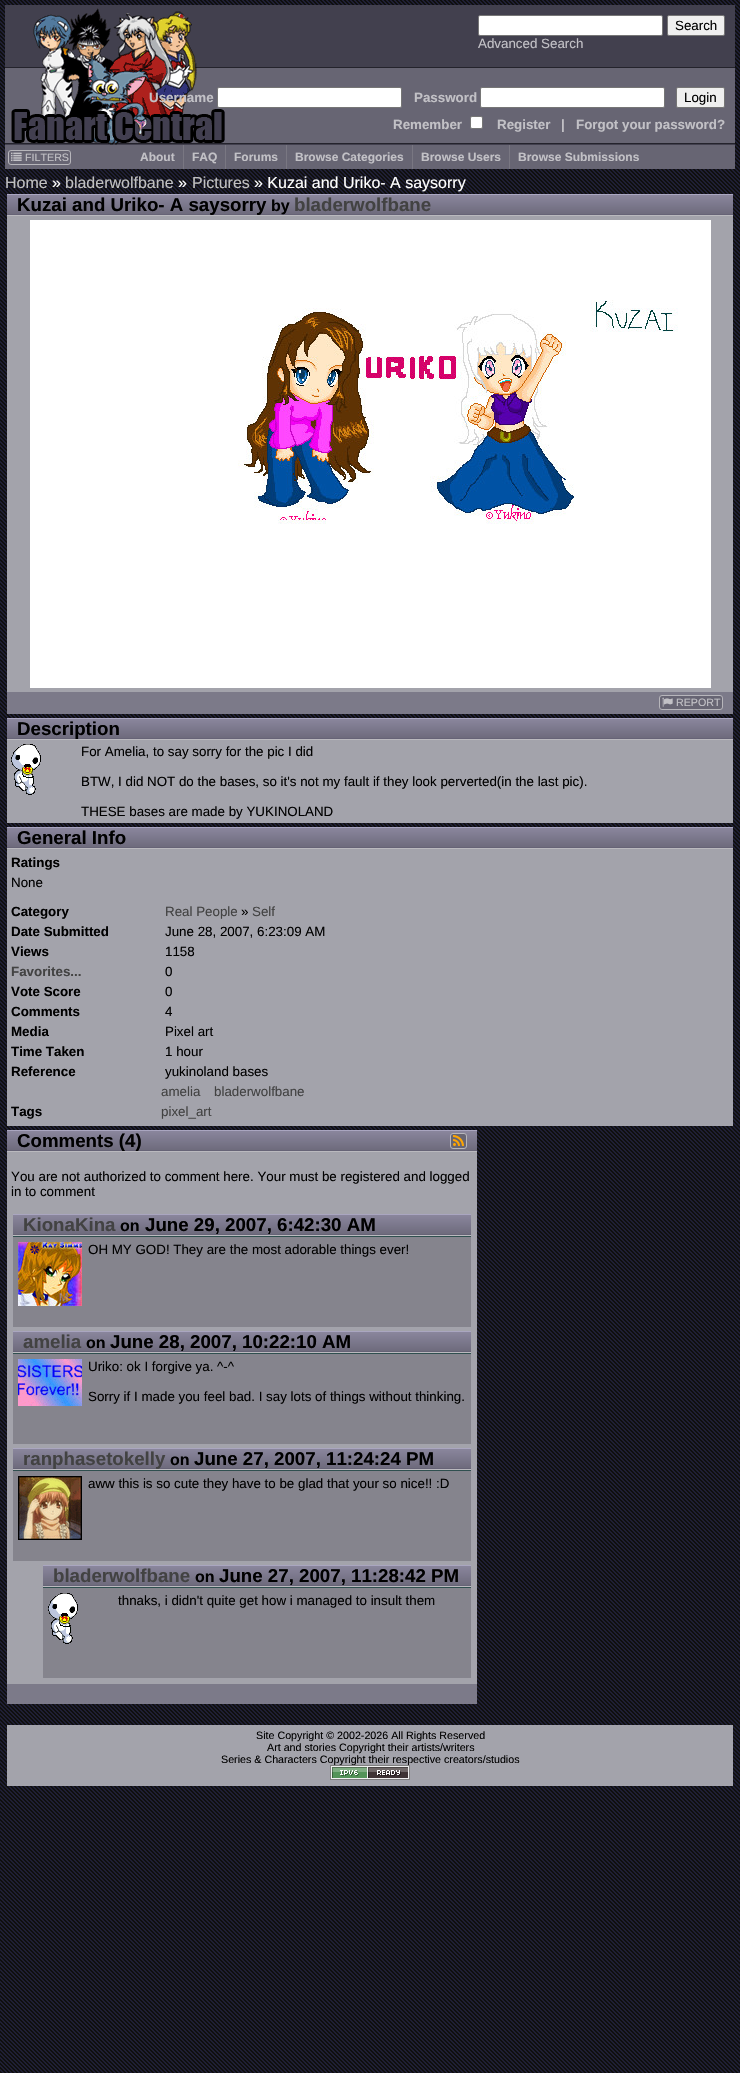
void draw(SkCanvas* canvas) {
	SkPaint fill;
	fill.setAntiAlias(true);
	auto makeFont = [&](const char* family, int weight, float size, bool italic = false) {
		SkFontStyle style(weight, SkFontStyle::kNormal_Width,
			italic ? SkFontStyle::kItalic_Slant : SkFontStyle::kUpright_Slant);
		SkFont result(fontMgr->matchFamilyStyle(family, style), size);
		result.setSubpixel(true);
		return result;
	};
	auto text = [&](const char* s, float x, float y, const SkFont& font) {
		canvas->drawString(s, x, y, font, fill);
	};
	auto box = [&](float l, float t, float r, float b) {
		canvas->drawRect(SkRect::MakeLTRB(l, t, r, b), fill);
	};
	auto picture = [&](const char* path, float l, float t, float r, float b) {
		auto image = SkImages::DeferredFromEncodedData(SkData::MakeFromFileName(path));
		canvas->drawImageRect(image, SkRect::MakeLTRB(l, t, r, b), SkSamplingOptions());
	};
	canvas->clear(0xFFFFFFFF);
	picture("image0.png", 0, 0, 740, 2073);
	picture("image1.png", 5, 5, 735, 145);
	picture("image2.png", 11, 8, 225, 145);
	fill.setColor(0xFFFFFFFF);
	canvas->drawRoundRect(SkRect::MakeLTRB(478.5f, 15.5f, 662.5f, 35.5f), 1.5f, 1.5f, fill);
	fill.setStyle(SkPaint::kStroke_Style);
	fill.setStrokeWidth(1);
	fill.setColor(0xFF767676);
	canvas->drawRoundRect(SkRect::MakeLTRB(478.5f, 15.5f, 662.5f, 35.5f), 1.5f, 1.5f, fill);
	fill.setStyle(SkPaint::kFill_Style);
	fill.setColor(0xFFEFEFEF);
	canvas->drawRoundRect(SkRect::MakeLTRB(667.5f, 15.5f, 724.5f, 35.5f), 1.5f, 1.5f, fill);
	fill.setStyle(SkPaint::kStroke_Style);
	fill.setColor(0xFF767676);
	canvas->drawRoundRect(SkRect::MakeLTRB(667.5f, 15.5f, 724.5f, 35.5f), 1.5f, 1.5f, fill);
	fill.setStyle(SkPaint::kFill_Style);
	fill.setColor(0xFFFFFFFF);
	canvas->drawRoundRect(SkRect::MakeLTRB(217.5f, 87.5f, 401.5f, 107.5f), 1.5f, 1.5f, fill);
	fill.setStyle(SkPaint::kStroke_Style);
	fill.setColor(0xFF767676);
	canvas->drawRoundRect(SkRect::MakeLTRB(217.5f, 87.5f, 401.5f, 107.5f), 1.5f, 1.5f, fill);
	fill.setStyle(SkPaint::kFill_Style);
	fill.setColor(0xFFFFFFFF);
	canvas->drawRoundRect(SkRect::MakeLTRB(480.5f, 87.5f, 664.5f, 107.5f), 1.5f, 1.5f, fill);
	fill.setStyle(SkPaint::kStroke_Style);
	fill.setColor(0xFF767676);
	canvas->drawRoundRect(SkRect::MakeLTRB(480.5f, 87.5f, 664.5f, 107.5f), 1.5f, 1.5f, fill);
	fill.setStyle(SkPaint::kFill_Style);
	fill.setColor(0xFFEFEFEF);
	canvas->drawRoundRect(SkRect::MakeLTRB(676.5f, 87.5f, 724.5f, 107.5f), 1.5f, 1.5f, fill);
	fill.setStyle(SkPaint::kStroke_Style);
	fill.setColor(0xFF767676);
	canvas->drawRoundRect(SkRect::MakeLTRB(676.5f, 87.5f, 724.5f, 107.5f), 1.5f, 1.5f, fill);
	fill.setStyle(SkPaint::kFill_Style);
	fill.setColor(0xFFFFFFFF);
	canvas->drawRoundRect(SkRect::MakeLTRB(470.5f, 116.5f, 482.5f, 128.5f), 1.5f, 1.5f, fill);
	fill.setStyle(SkPaint::kStroke_Style);
	fill.setColor(0xFF767676);
	canvas->drawRoundRect(SkRect::MakeLTRB(470.5f, 116.5f, 482.5f, 128.5f), 1.5f, 1.5f, fill);
	fill.setStyle(SkPaint::kFill_Style);
	fill.setColor(0xFF676573);
	box(5, 145, 735, 169);
	fill.setStyle(SkPaint::kStroke_Style);
	fill.setColor(0xFFB7B6BB);
	canvas->drawRoundRect(SkRect::MakeLTRB(8.5f, 150.5f, 70.5f, 164.5f), 2.5f, 2.5f, fill);
	picture("image3.png", 11, 152, 22, 161);
	fill.setStyle(SkPaint::kFill_Style);
	fill.setColor(0xFF797782);
	box(183, 145, 184, 169);
	box(225, 145, 226, 169);
	box(286, 145, 287, 169);
	box(412, 145, 413, 169);
	box(509, 145, 510, 169);
	{
		const SkColor colors[] = {0xFF8B879E, 0xFF6B6879};
		const float stops[] = {0.01f, 1};
		const SkPoint ends[] = {{370, 194}, {370, 216}};
		fill.setShader(SkGradientShader::MakeLinear(ends, colors, stops, 2, SkTileMode::kClamp));
		fill.setAlpha(255);
	}
	box(7, 195, 733, 214);
	fill.setShader(nullptr);
	fill.setColor(0xFFAAA6C0);
	box(7, 194, 733, 195);
	fill.setColor(0xFF666376);
	box(7, 214, 733, 215);
	fill.setColor(0xFFBAB9BE);
	box(7, 215, 733, 216);
	fill.setColor(0xFFA3A3AB);
	box(7, 216, 733, 692);
	picture("image4.png", 30, 220, 711, 688);
	fill.setColor(0xFF7C7A89);
	box(7, 692, 733, 714);
	fill.setColor(0xFF676573);
	canvas->drawRoundRect(SkRect::MakeLTRB(659.5f, 695.5f, 722.5f, 709.5f), 2.5f, 2.5f, fill);
	fill.setStyle(SkPaint::kStroke_Style);
	fill.setColor(0xFFB7B6BB);
	canvas->drawRoundRect(SkRect::MakeLTRB(659.5f, 695.5f, 722.5f, 709.5f), 2.5f, 2.5f, fill);
	picture("image5.png", 662, 697, 673, 707);
	fill.setStyle(SkPaint::kFill_Style);
	{
		const SkColor colors[] = {0xFF8B879E, 0xFF6B6879};
		const float stops[] = {0.01f, 1};
		const SkPoint ends[] = {{370, 718}, {370, 740}};
		fill.setShader(SkGradientShader::MakeLinear(ends, colors, stops, 2, SkTileMode::kClamp));
		fill.setAlpha(255);
	}
	box(7, 719, 733, 738);
	fill.setShader(nullptr);
	fill.setColor(0xFFAAA6C0);
	box(7, 718, 733, 719);
	fill.setColor(0xFF666376);
	box(7, 738, 733, 739);
	fill.setColor(0xFFBAB9BE);
	box(7, 739, 733, 740);
	fill.setColor(0xFFA3A3AB);
	box(7, 740, 733, 823);
	picture("image6.png", 11, 744, 41, 795);
	{
		const SkColor colors[] = {0xFF8B879E, 0xFF6B6879};
		const float stops[] = {0.01f, 1};
		const SkPoint ends[] = {{370, 827}, {370, 849}};
		fill.setShader(SkGradientShader::MakeLinear(ends, colors, stops, 2, SkTileMode::kClamp));
		fill.setAlpha(255);
	}
	box(7, 828, 733, 847);
	fill.setShader(nullptr);
	fill.setColor(0xFFAAA6C0);
	box(7, 827, 733, 828);
	fill.setColor(0xFF666376);
	box(7, 847, 733, 848);
	fill.setColor(0xFFBAB9BE);
	box(7, 848, 733, 849);
	fill.setColor(0xFFA3A3AB);
	box(7, 849, 733, 1126);
	{
		const SkColor colors[] = {0xFF8B879E, 0xFF6B6879};
		const float stops[] = {0.01f, 1};
		const SkPoint ends[] = {{242, 1130}, {242, 1152}};
		fill.setShader(SkGradientShader::MakeLinear(ends, colors, stops, 2, SkTileMode::kClamp));
		fill.setAlpha(255);
	}
	box(7, 1131, 477, 1150);
	fill.setShader(nullptr);
	fill.setColor(0xFFAAA6C0);
	box(7, 1130, 477, 1131);
	fill.setColor(0xFF666376);
	box(7, 1150, 477, 1151);
	fill.setColor(0xFFBAB9BE);
	box(7, 1151, 477, 1152);
	fill.setColor(0xFF676573);
	canvas->drawRoundRect(SkRect::MakeLTRB(450.5f, 1133.5f, 466.5f, 1148.5f), 2.5f, 2.5f, fill);
	fill.setStyle(SkPaint::kStroke_Style);
	fill.setColor(0xFFB7B6BB);
	canvas->drawRoundRect(SkRect::MakeLTRB(450.5f, 1133.5f, 466.5f, 1148.5f), 2.5f, 2.5f, fill);
	picture("image7.png", 453, 1135, 464, 1146);
	fill.setStyle(SkPaint::kFill_Style);
	fill.setColor(0xFFA3A3AB);
	box(7, 1152, 477, 1684);
	{
		const SkColor colors[] = {0xFF8B879E, 0xFF6B6879};
		const float stops[] = {0.01f, 1};
		const SkPoint ends[] = {{242, 1214}, {242, 1236}};
		fill.setShader(SkGradientShader::MakeLinear(ends, colors, stops, 2, SkTileMode::kClamp));
		fill.setAlpha(255);
	}
	box(13, 1215, 471, 1234);
	fill.setShader(nullptr);
	fill.setColor(0xFFAAA6C0);
	box(13, 1214, 471, 1215);
	fill.setColor(0xFF666376);
	box(13, 1234, 471, 1235);
	fill.setColor(0xFFBAB9BE);
	box(13, 1235, 471, 1236);
	fill.setColor(0xFF85848D);
	box(13, 1237, 471, 1327);
	fill.setColor(0xFF2F4F4F);
	box(13, 1236, 471, 1237);
	picture("image8.png", 18, 1242, 82, 1306);
	{
		const SkColor colors[] = {0xFF8B879E, 0xFF6B6879};
		const float stops[] = {0.01f, 1};
		const SkPoint ends[] = {{242, 1331}, {242, 1353}};
		fill.setShader(SkGradientShader::MakeLinear(ends, colors, stops, 2, SkTileMode::kClamp));
		fill.setAlpha(255);
	}
	box(13, 1332, 471, 1351);
	fill.setShader(nullptr);
	fill.setColor(0xFFAAA6C0);
	box(13, 1331, 471, 1332);
	fill.setColor(0xFF666376);
	box(13, 1351, 471, 1352);
	fill.setColor(0xFFBAB9BE);
	box(13, 1352, 471, 1353);
	fill.setColor(0xFF85848D);
	box(13, 1354, 471, 1444);
	fill.setColor(0xFF2F4F4F);
	box(13, 1353, 471, 1354);
	picture("image9.png", 18, 1359, 82, 1406);
	{
		const SkColor colors[] = {0xFF8B879E, 0xFF6B6879};
		const float stops[] = {0.01f, 1};
		const SkPoint ends[] = {{242, 1448}, {242, 1470}};
		fill.setShader(SkGradientShader::MakeLinear(ends, colors, stops, 2, SkTileMode::kClamp));
		fill.setAlpha(255);
	}
	box(13, 1449, 471, 1468);
	fill.setShader(nullptr);
	fill.setColor(0xFFAAA6C0);
	box(13, 1448, 471, 1449);
	fill.setColor(0xFF666376);
	box(13, 1468, 471, 1469);
	fill.setColor(0xFFBAB9BE);
	box(13, 1469, 471, 1470);
	fill.setColor(0xFF85848D);
	box(13, 1471, 471, 1561);
	fill.setColor(0xFF2F4F4F);
	box(13, 1470, 471, 1471);
	picture("image10.png", 18, 1476, 82, 1540);
	{
		const SkColor colors[] = {0xFF8B879E, 0xFF6B6879};
		const float stops[] = {0.01f, 1};
		const SkPoint ends[] = {{257, 1565}, {257, 1587}};
		fill.setShader(SkGradientShader::MakeLinear(ends, colors, stops, 2, SkTileMode::kClamp));
		fill.setAlpha(255);
	}
	box(43, 1566, 471, 1585);
	fill.setShader(nullptr);
	fill.setColor(0xFFAAA6C0);
	box(43, 1565, 471, 1566);
	fill.setColor(0xFF666376);
	box(43, 1585, 471, 1586);
	fill.setColor(0xFFBAB9BE);
	box(43, 1586, 471, 1587);
	fill.setColor(0xFF85848D);
	box(43, 1588, 471, 1678);
	fill.setColor(0xFF2F4F4F);
	box(43, 1587, 471, 1588);
	picture("image11.png", 48, 1593, 78, 1644);
	fill.setColor(0xFF7C7A89);
	box(7, 1684, 477, 1704);
	fill.setColor(0xFFA3A3AB);
	box(7, 1725, 733, 1786);
	auto font1 = makeFont("Liberation Sans", 400, 13.35f);
	fill.setColor(0xFF000000);
	text("Search", 675, 30, font1);
	fill.setColor(0xFFC2C1C6);
	text("Advanced Search", 478, 48, font1);
	auto font2 = makeFont("Liberation Sans", 700, 13.35f);
	text("Username", 149, 102, font2);
	text("Password", 414, 102, font2);
	fill.setColor(0xFF000000);
	text("Login", 684, 102, font1);
	fill.setColor(0xFFC2C1C6);
	text("Remember", 393, 129, font2);
	text("Register", 497, 129, font2);
	text("|", 561, 129, font2);
	text("Forgot your password?", 576, 129, font2);
	auto font3 = makeFont("Liberation Sans", 400, 10.7f);
	text("FILTERS", 25, 161, font3);
	auto font4 = makeFont("Liberation Sans", 700, 12);
	text("About", 140, 161, font4);
	text("FAQ", 192, 161, font4);
	text("Forums", 234, 161, font4);
	text("Browse Categories", 295, 161, font4);
	text("Browse Users", 421, 161, font4);
	text("Browse Submissions", 518, 161, font4);
	auto font5 = makeFont("Liberation Sans", 400, 16);
	fill.setColor(0xFFC0C0C0);
	text("Home", 5, 188, font5);
	fill.setColor(0xFFFFFFFF);
	text("»", 52, 188, font5);
	fill.setColor(0xFFC0C0C0);
	text("bladerwolfbane", 65, 188, font5);
	fill.setColor(0xFFFFFFFF);
	text("»", 178, 188, font5);
	fill.setColor(0xFFC0C0C0);
	text("Pictures", 192, 188, font5);
	fill.setColor(0xFFFFFFFF);
	text("» Kuzai and Uriko- A saysorry", 254, 188, font5);
	auto font6 = makeFont("Liberation Sans", 700, 18.7f);
	fill.setColor(0xFF000000);
	text("Kuzai and Uriko- A saysorry", 17, 211, font6);
	auto font7 = makeFont("Liberation Sans", 700, 16);
	text("by", 271, 211, font7);
	fill.setColor(0xFF424242);
	text("bladerwolfbane", 294, 211, font6);
	fill.setColor(0xFFC2C1C6);
	text("REPORT", 676, 706, font3);
	fill.setColor(0xFF000000);
	text("Description", 17, 735, font6);
	text("For Amelia, to say sorry for the pic I did", 81, 756, font1);
	text("BTW, I did NOT do the bases, so it's not my fault if they look perverted(in the last pic).", 81, 786, font1);
	text("THESE bases are made by YUKINOLAND", 81, 816, font1);
	text("General Info", 17, 844, font6);
	text("Ratings", 11, 867, font2);
	text("None", 11, 887, font1);
	text("Category", 11, 916, font2);
	fill.setColor(0xFF424242);
	text("Real People", 165, 916, font1);
	fill.setColor(0xFF000000);
	text("»", 241, 916, font1);
	fill.setColor(0xFF424242);
	text("Self", 252, 916, font1);
	fill.setColor(0xFF000000);
	text("Date Submitted", 11, 936, font2);
	text("June 28, 2007, 6:23:09 AM", 165, 936, font1);
	text("Views", 11, 956, font2);
	text("1158", 165, 956, font1);
	fill.setColor(0xFF424242);
	text("Favorites...", 11, 976, font2);
	fill.setColor(0xFF000000);
	text("0", 165, 976, font1);
	text("Vote Score", 11, 996, font2);
	text("0", 165, 996, font1);
	text("Comments", 11, 1016, font2);
	text("4", 165, 1016, font1);
	text("Media", 11, 1036, font2);
	text("Pixel art", 165, 1036, font1);
	text("Time Taken", 11, 1056, font2);
	text("1 hour", 165, 1056, font1);
	text("Reference", 11, 1076, font2);
	text("yukinoland bases", 165, 1076, font1);
	text("Tags", 11, 1116, font2);
	fill.setColor(0xFF424242);
	text("amelia", 161, 1096, font1);
	text("bladerwolfbane", 214, 1096, font1);
	text("pixel_art", 161, 1116, font1);
	fill.setColor(0xFF000000);
	text("Comments (4)", 17, 1147, font6);
	text("You are not authorized to comment here. Your must be registered and logged", 11, 1181, font1);
	text("in to comment", 11, 1196, font1);
	fill.setColor(0xFF424242);
	text("KionaKina", 23, 1231, font6);
	fill.setColor(0xFF000000);
	text("on", 120, 1231, font7);
	text("June 29, 2007, 6:42:30 AM", 145, 1231, font6);
	text("OH MY GOD! They are the most adorable things ever!", 88, 1254, font1);
	fill.setColor(0xFF424242);
	text("amelia", 23, 1348, font6);
	fill.setColor(0xFF000000);
	text("on", 86, 1348, font7);
	text("June 28, 2007, 10:22:10 AM", 110, 1348, font6);
	text("Uriko: ok I forgive ya. ^-^", 88, 1371, font1);
	text("Sorry if I made you feel bad. I say lots of things without thinking.", 88, 1401, font1);
	fill.setColor(0xFF424242);
	text("ranphasetokelly", 23, 1465, font6);
	fill.setColor(0xFF000000);
	text("on", 170, 1465, font7);
	text("June 27, 2007, 11:24:24 PM", 194, 1465, font6);
	text("aww this is so cute they have to be glad that your so nice!! :D", 88, 1488, font1);
	fill.setColor(0xFF424242);
	text("bladerwolfbane", 53, 1582, font6);
	fill.setColor(0xFF000000);
	text("on", 195, 1582, font7);
	text("June 27, 2007, 11:28:42 PM", 219, 1582, font6);
	text("thnaks, i didn't quite get how i managed to insult them", 118, 1605, font1);
	text("Site Copyright © 2002-2026 All Rights Reserved", 256, 1739, font3);
	text("Art and stories Copyright their artists/writers", 267, 1751, font3);
	text("Series & Characters Copyright their respective creators/studios", 221, 1763, font3);
	picture("image12.png", 330, 1765, 410, 1780);
}
